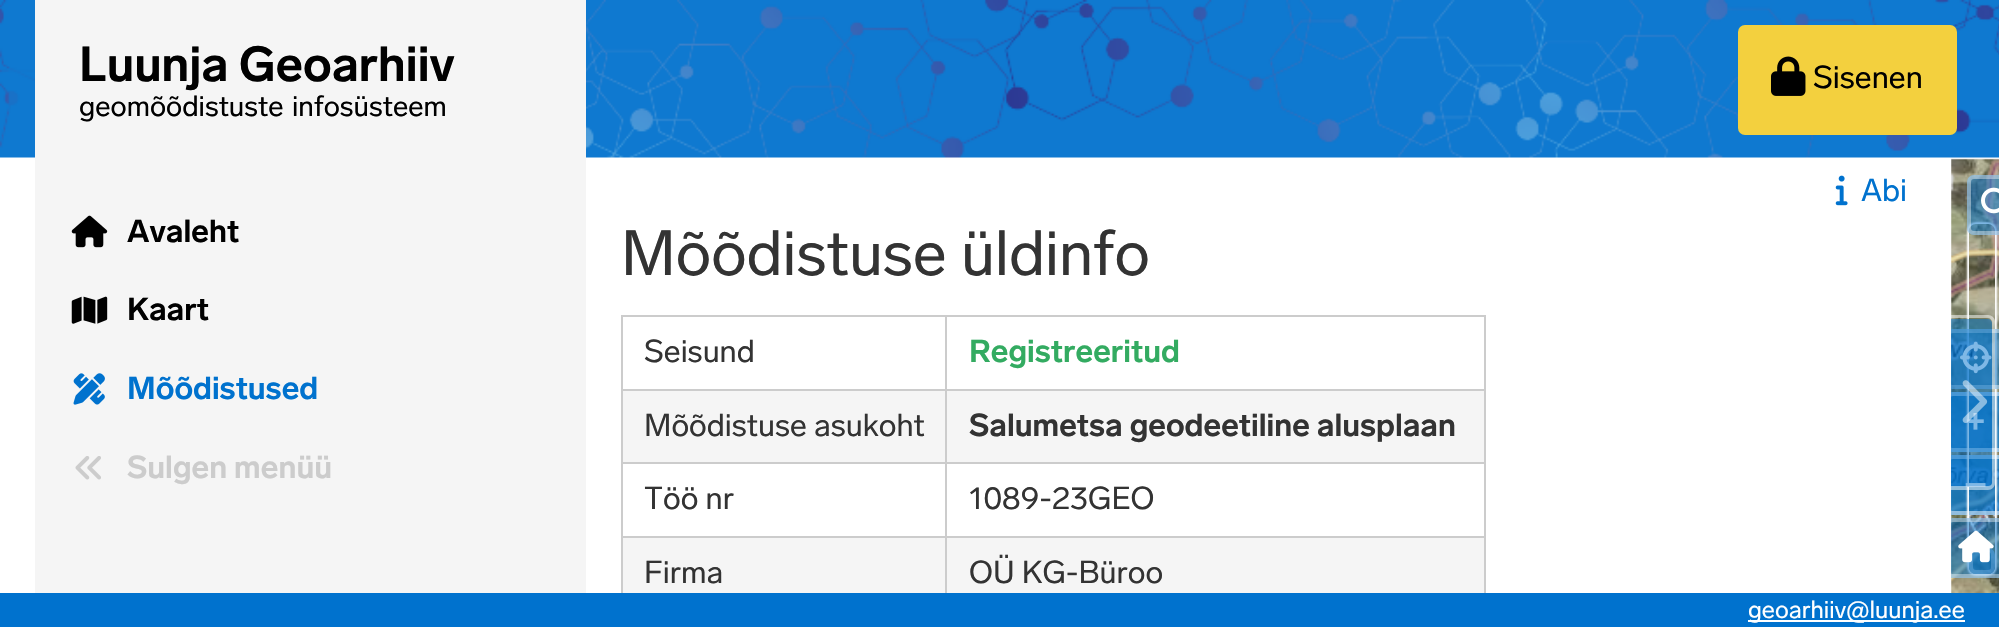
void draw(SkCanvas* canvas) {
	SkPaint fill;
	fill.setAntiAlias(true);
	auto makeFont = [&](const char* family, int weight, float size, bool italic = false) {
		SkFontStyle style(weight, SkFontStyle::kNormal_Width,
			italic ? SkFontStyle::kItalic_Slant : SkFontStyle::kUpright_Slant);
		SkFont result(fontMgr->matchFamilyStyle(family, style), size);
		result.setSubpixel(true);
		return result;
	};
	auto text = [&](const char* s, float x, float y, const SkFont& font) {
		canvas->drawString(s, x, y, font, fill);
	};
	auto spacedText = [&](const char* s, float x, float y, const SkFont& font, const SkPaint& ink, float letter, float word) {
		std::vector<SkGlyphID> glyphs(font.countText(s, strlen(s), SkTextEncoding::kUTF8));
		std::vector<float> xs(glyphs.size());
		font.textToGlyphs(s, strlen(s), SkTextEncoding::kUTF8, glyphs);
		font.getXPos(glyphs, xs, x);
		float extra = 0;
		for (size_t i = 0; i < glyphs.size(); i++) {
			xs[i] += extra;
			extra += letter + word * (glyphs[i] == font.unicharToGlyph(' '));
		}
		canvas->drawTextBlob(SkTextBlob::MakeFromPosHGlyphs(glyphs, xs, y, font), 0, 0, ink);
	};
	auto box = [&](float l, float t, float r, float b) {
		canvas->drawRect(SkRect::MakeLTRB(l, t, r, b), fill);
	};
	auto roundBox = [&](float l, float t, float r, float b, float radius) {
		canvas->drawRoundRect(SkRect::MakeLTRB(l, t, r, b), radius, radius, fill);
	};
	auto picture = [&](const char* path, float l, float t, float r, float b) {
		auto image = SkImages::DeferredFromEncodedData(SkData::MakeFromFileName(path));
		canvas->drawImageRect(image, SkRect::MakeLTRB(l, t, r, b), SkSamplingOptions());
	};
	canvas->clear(0xFFFFFFFF);
	fill.setColor(0xFFF5F5F5);
	box(35, 158, 586, 593);
	picture("image0.png", 0, 0, 1999, 158);
	box(35, 0, 586, 158);
	fill.setColor(0xFFF3D03E);
	roundBox(1738, 25, 1957, 135, 7);
	picture("image1.png", 1771, 56, 1806, 96);
	picture("image2.png", 71, 215, 108, 248);
	picture("image3.png", 71, 296, 108, 324);
	picture("image4.png", 73, 373, 105, 405);
	picture("image5.png", 75, 456, 101, 480);
	picture("image6.png", 1835, 175, 1848, 206);
	fill.setColor(0xFFCCCCCC);
	box(945, 315, 1486, 317);
	box(945, 389, 1486, 391);
	box(945, 462, 1486, 464);
	box(945, 536, 1486, 538);
	box(945, 536, 947, 593);
	box(621, 536, 947, 538);
	box(945, 462, 947, 537);
	box(621, 462, 947, 464);
	box(945, 389, 947, 464);
	box(621, 389, 947, 391);
	box(945, 315, 947, 390);
	box(621, 315, 947, 317);
	box(621, 536, 623, 593);
	box(621, 462, 623, 537);
	box(621, 389, 623, 464);
	box(621, 315, 623, 390);
	box(1484, 536, 1486, 593);
	box(1484, 462, 1486, 537);
	box(1484, 389, 1486, 464);
	box(1484, 315, 1486, 390);
	fill.setColor(0xFFF5F5F5);
	box(623, 391, 945, 462);
	box(947, 391, 1484, 462);
	box(623, 538, 945, 593);
	box(947, 538, 1484, 593);
	box(1951, 158, 1999, 160);
	picture("image8.png", 1951, 159, 1999, 593);
	canvas->save();
	canvas->clipRect(SkRect::MakeLTRB(1951, 159, 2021, 593));
	fill.setColor(0x800072CE);
	roundBox(1946, 392, 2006, 452, 7);
	fill.setStyle(SkPaint::kStroke_Style);
	fill.setStrokeWidth(4);
	fill.setColor(0x66FFFFFF);
	canvas->drawRoundRect(SkRect::MakeLTRB(1948, 394, 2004, 450), 5, 5, fill);
	fill.setStyle(SkPaint::kFill_Style);
	fill.setColor(0x800072CE);
	roundBox(1946, 455, 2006, 515, 7);
	fill.setStyle(SkPaint::kStroke_Style);
	fill.setColor(0x66FFFFFF);
	canvas->drawRoundRect(SkRect::MakeLTRB(1948, 457, 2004, 513), 5, 5, fill);
	fill.setStyle(SkPaint::kFill_Style);
	fill.setColor(0x800072CE);
	roundBox(1946, 392, 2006, 452, 7);
	fill.setStyle(SkPaint::kStroke_Style);
	fill.setColor(0x66FFFFFF);
	canvas->drawRoundRect(SkRect::MakeLTRB(1948, 394, 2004, 450), 5, 5, fill);
	fill.setStyle(SkPaint::kFill_Style);
	fill.setColor(0x800072CE);
	roundBox(1946, 455, 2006, 515, 7);
	fill.setStyle(SkPaint::kStroke_Style);
	fill.setColor(0x66FFFFFF);
	canvas->drawRoundRect(SkRect::MakeLTRB(1948, 457, 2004, 513), 5, 5, fill);
	canvas->restore();
	canvas->save();
	canvas->clipPath(SkPathBuilder(SkPathFillType::kEvenOdd).moveTo(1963, 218).lineTo(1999, 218).lineTo(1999, 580).lineTo(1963, 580).close().moveTo(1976, 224).lineTo(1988, 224).cubicTo(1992, 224, 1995, 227, 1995, 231).lineTo(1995, 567).cubicTo(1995, 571, 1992, 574, 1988, 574).lineTo(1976, 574).cubicTo(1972, 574, 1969, 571, 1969, 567).lineTo(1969, 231).cubicTo(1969, 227, 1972, 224, 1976, 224).close().detach(), true);
	fill.setStyle(SkPaint::kFill_Style);
	fill.setColor(0xFFFFFFFF);
	fill.setMaskFilter(SkMaskFilter::MakeBlur(kNormal_SkBlurStyle, 1));
	canvas->drawRoundRect(SkRect::MakeLTRB(1967, 222, 1997, 576), 9, 9, fill);
	fill.setMaskFilter(nullptr);
	canvas->restore();
	fill.setColor(0x800072CE);
	roundBox(1967, 175, 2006, 235, 7);
	fill.setStyle(SkPaint::kStroke_Style);
	fill.setColor(0x66FFFFFF);
	canvas->drawRoundRect(SkRect::MakeLTRB(1969, 177, 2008, 233), 5, 5, fill);
	picture("image9.png", 1981, 187, 1999, 214);
	fill.setStyle(SkPaint::kFill_Style);
	fill.setColor(0x800072CE);
	roundBox(1969, 548, 1995, 574, 7);
	fill.setStyle(SkPaint::kStroke_Style);
	fill.setColor(0x66FFFFFF);
	canvas->drawRoundRect(SkRect::MakeLTRB(1971, 550, 1993, 572), 5, 5, fill);
	canvas->save();
	canvas->clipRect(SkRect::MakeLTRB(1951, 159, 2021, 593));
	fill.setStyle(SkPaint::kFill_Style);
	fill.setColor(0x800072CE);
	roundBox(1946, 329, 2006, 389, 7);
	fill.setStyle(SkPaint::kStroke_Style);
	fill.setColor(0x66FFFFFF);
	canvas->drawRoundRect(SkRect::MakeLTRB(1948, 331, 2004, 387), 5, 5, fill);
	canvas->restore();
	picture("image10.png", 1960, 341, 1992, 374);
	canvas->save();
	canvas->clipRect(SkRect::MakeLTRB(1951, 159, 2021, 593));
	fill.setStyle(SkPaint::kFill_Style);
	fill.setColor(0x800072CE);
	roundBox(1946, 518, 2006, 578, 7);
	fill.setStyle(SkPaint::kStroke_Style);
	fill.setColor(0x66FFFFFF);
	canvas->drawRoundRect(SkRect::MakeLTRB(1948, 520, 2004, 576), 5, 5, fill);
	canvas->restore();
	picture("image11.png", 1958, 530, 1994, 563);
	fill.setStyle(SkPaint::kFill_Style);
	fill.setColor(0xFF0072CE);
	box(0, 593, 1999, 627);
	fill.setColor(0xFFFFFFFF);
	box(1748, 620, 1965, 622);
	auto font1 = makeFont("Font", 700, 48.5f);
	fill.setColor(0xFF000000);
	text("Luunja Geoarhiiv", 79, 81, font1);
	auto font2 = makeFont("Font", 400, 28.7f);
	spacedText("geomõõdistuste infosüsteem", 79, 116, font2, fill, 0, 2);
	auto font3 = makeFont("Font", 400, 31.5f);
	text("Sisenen", 1813, 88, font3);
	auto font4 = makeFont("Font", 700, 31.5f);
	text("Avaleht", 127, 242, font4);
	text("Kaart", 127, 320, font4);
	fill.setColor(0xFF0072CE);
	text("Mõõdistused", 127, 399, font4);
	fill.setColor(0xFFCCCCCC);
	text("Sulgen menüü", 127, 478, font4);
	fill.setColor(0xFF0072CE);
	text("Abi", 1861, 201, font3);
	auto font5 = makeFont("Font", 400, 63);
	fill.setColor(0xFF333333);
	text("Mõõdistuse üldinfo", 621, 275, font5);
	text("Seisund", 644, 362, font3);
	fill.setColor(0xFF33AB61);
	text("Registreeritud", 969, 362, font4);
	fill.setColor(0xFF333333);
	text("Mõõdistuse asukoht", 644, 436, font3);
	text("Salumetsa geodeetiline alusplaan", 969, 436, font4);
	text("Töö nr", 644, 509, font3);
	text("1089-23GEO", 969, 509, font3);
	text("Firma", 644, 583, font3);
	text("OÜ KG-Büroo", 969, 583, font3);
	fill.setColor(0xFFFFFFFF);
	text("+", 1966, 431, font4);
	text("–", 1964, 494, font4);
	fill.setColor(0x800072CE);
	canvas->drawPath(SkPathBuilder().moveTo(1951, 319).lineTo(1988, 319).cubicTo(1990, 319, 1992, 321, 1992, 323).lineTo(1992, 483).cubicTo(1992, 485, 1990, 487, 1988, 487).lineTo(1951, 487).close().detach(), fill);
	fill.setColor(0x80FFFFFF);
	canvas->drawPath(SkPathBuilder(SkPathFillType::kEvenOdd).moveTo(1951, 315).lineTo(1988, 315).cubicTo(1992, 315, 1995, 318, 1995, 322).lineTo(1995, 483).cubicTo(1995, 487, 1992, 490, 1988, 490).lineTo(1951, 490).close().moveTo(1951, 318).lineTo(1988, 318).cubicTo(1990, 318, 1992, 320, 1992, 322).lineTo(1992, 483).cubicTo(1992, 485, 1990, 486, 1988, 486).lineTo(1951, 486).close().detach(), fill);
	picture("image7.png", 1962, 380, 1988, 423);
	auto font6 = makeFont("Font", 400, 24.5f);
	fill.setColor(0xFFFFFFFF);
	text("geoarhiiv@luunja.ee", 1748, 618, font6);
}
